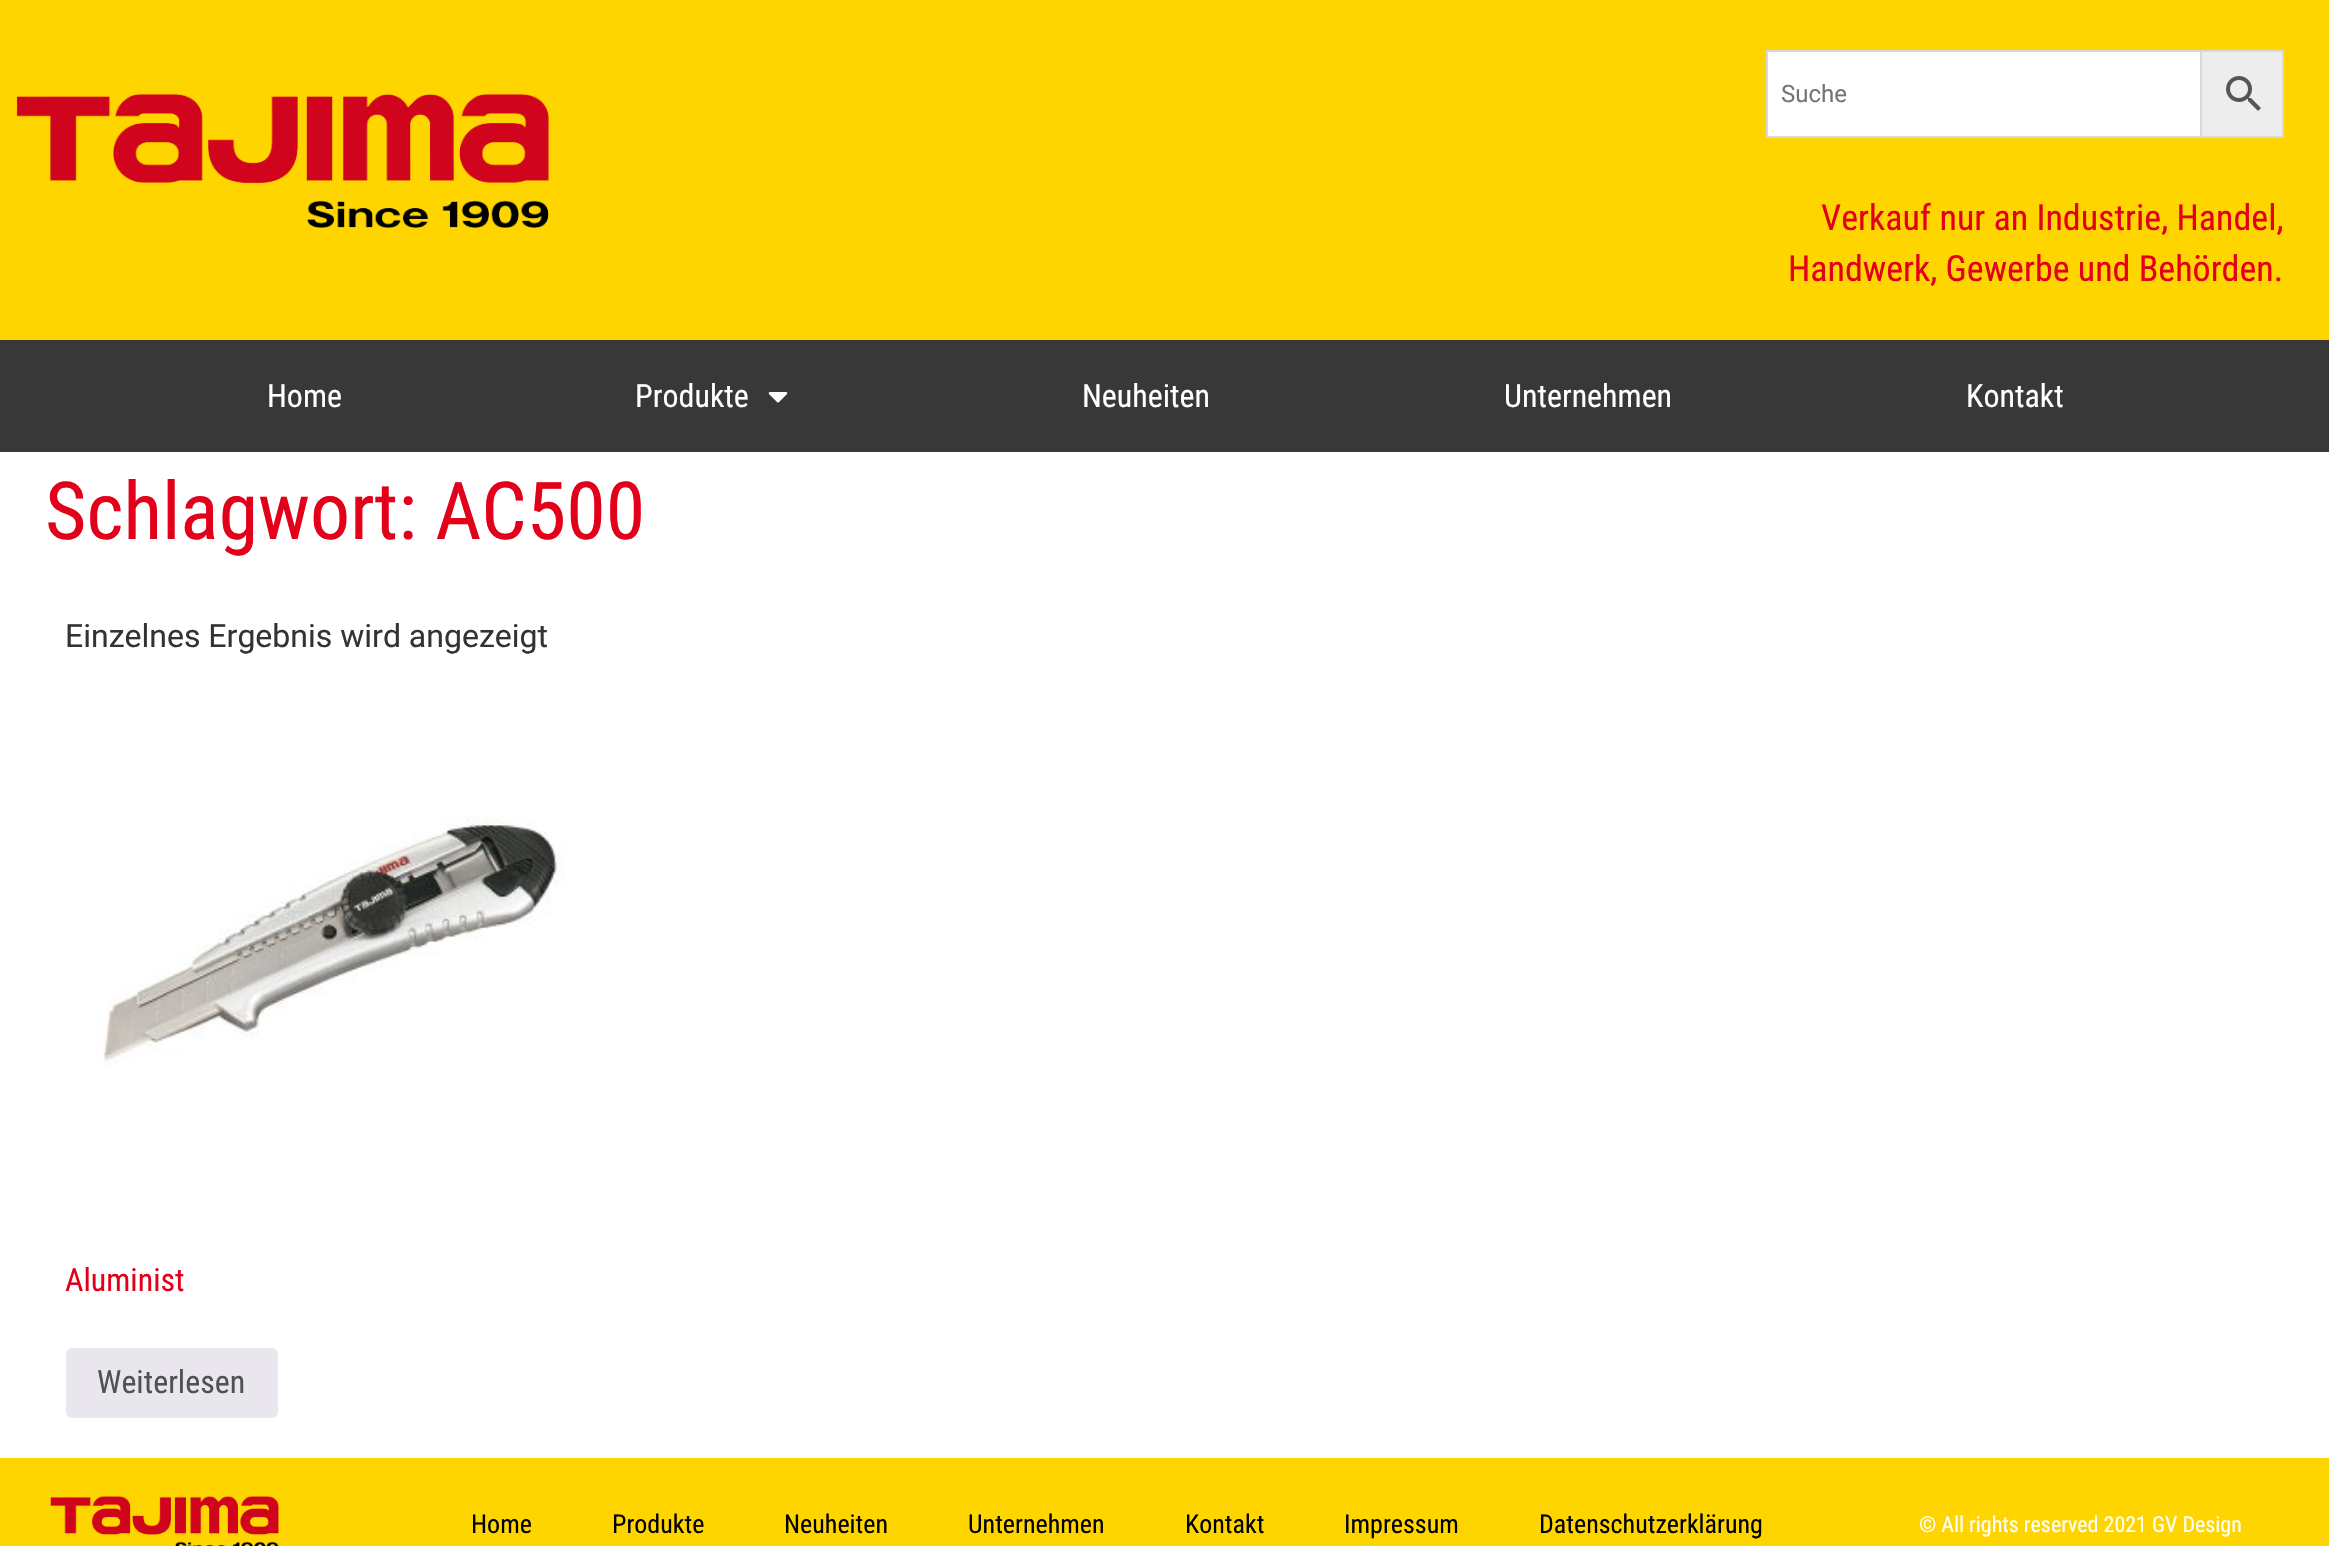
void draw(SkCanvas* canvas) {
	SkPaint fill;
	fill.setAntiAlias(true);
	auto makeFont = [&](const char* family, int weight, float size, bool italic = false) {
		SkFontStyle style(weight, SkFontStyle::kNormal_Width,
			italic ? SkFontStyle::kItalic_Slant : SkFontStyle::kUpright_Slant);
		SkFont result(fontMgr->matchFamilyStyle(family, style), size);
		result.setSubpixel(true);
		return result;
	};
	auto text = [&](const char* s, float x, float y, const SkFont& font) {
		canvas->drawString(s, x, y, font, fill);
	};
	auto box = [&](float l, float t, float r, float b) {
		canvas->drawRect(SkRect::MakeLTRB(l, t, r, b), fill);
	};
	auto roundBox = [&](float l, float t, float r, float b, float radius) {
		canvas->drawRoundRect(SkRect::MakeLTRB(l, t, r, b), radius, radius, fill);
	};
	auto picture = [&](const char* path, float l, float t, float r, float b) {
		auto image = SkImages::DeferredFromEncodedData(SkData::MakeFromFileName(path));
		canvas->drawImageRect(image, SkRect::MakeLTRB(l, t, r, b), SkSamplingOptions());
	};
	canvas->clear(0xFFFFFFFF);
	fill.setColor(0xFFFFD500);
	box(0, 0, 2329, 340);
	picture("image0.png", 16, 94, 549, 228);
	fill.setColor(0xFFEDEDED);
	canvas->drawRect(SkRect::MakeLTRB(2201, 51, 2283, 137), fill);
	fill.setStyle(SkPaint::kStroke_Style);
	fill.setStrokeWidth(2);
	fill.setColor(0xFFD8D8D8);
	canvas->drawRect(SkRect::MakeLTRB(2201, 51, 2283, 137), fill);
	fill.setStyle(SkPaint::kFill_Style);
	fill.setColor(0xFFFFFFFF);
	canvas->drawRect(SkRect::MakeLTRB(1767, 51, 2201, 137), fill);
	fill.setStyle(SkPaint::kStroke_Style);
	fill.setColor(0xFFD8D8D8);
	canvas->drawRect(SkRect::MakeLTRB(1767, 51, 2201, 137), fill);
	picture("image1.png", 2226, 76, 2261, 111);
	fill.setStyle(SkPaint::kFill_Style);
	fill.setColor(0xFF383838);
	box(0, 340, 2329, 452);
	picture("image2.png", 768, 392, 788, 403);
	picture("image3.png", 95, 816, 565, 1066);
	fill.setColor(0xFFE9E6ED);
	roundBox(66, 1348, 278, 1418, 6);
	fill.setColor(0xFFFFD500);
	box(0, 1458, 2329, 1546);
	picture("image4.png", 50, 1496, 279, 1546);
	auto font1 = makeFont("Roboto", 400, 24);
	fill.setColor(0xFF757575);
	text("Suche", 1781, 102, font1);
	auto font2 = makeFont("Roboto Condensed", 400, 36);
	fill.setColor(0xFFE2001A);
	text("Verkauf nur an Industrie, Handel,", 1821, 230, font2);
	text("Handwerk, Gewerbe und Behörden.", 1788, 281, font2);
	auto font3 = makeFont("Roboto Condensed", 400, 32);
	fill.setColor(0xFFFFFFFF);
	text("Home", 267, 407, font3);
	text("Produkte", 635, 407, font3);
	text("Neuheiten", 1082, 407, font3);
	text("Unternehmen", 1504, 407, font3);
	text("Kontakt", 1966, 407, font3);
	auto font4 = makeFont("Roboto Condensed", 400, 80);
	fill.setColor(0xFFE2001A);
	text("Schlagwort: AC500", 45, 539, font4);
	auto font5 = makeFont("Roboto", 400, 32);
	fill.setColor(0xFF333333);
	text("Einzelnes Ergebnis wird angezeigt", 65, 647, font5);
	fill.setColor(0xFFE2001A);
	text("Aluminist", 65, 1291, font3);
	fill.setColor(0xFF515151);
	text("Weiterlesen", 97, 1393, font3);
	auto font6 = makeFont("Roboto Condensed", 400, 26);
	fill.setColor(0xFF000000);
	text("Home", 471, 1533, font6);
	text("Produkte", 612, 1533, font6);
	text("Neuheiten", 784, 1533, font6);
	text("Unternehmen", 968, 1533, font6);
	text("Kontakt", 1185, 1533, font6);
	text("Impressum", 1344, 1533, font6);
	text("Datenschutzerklärung", 1539, 1533, font6);
	auto font7 = makeFont("Roboto Condensed", 400, 22);
	fill.setColor(0xFFFFFFFF);
	text("© All rights reserved 2021 GV Design", 1919, 1532, font7);
}
